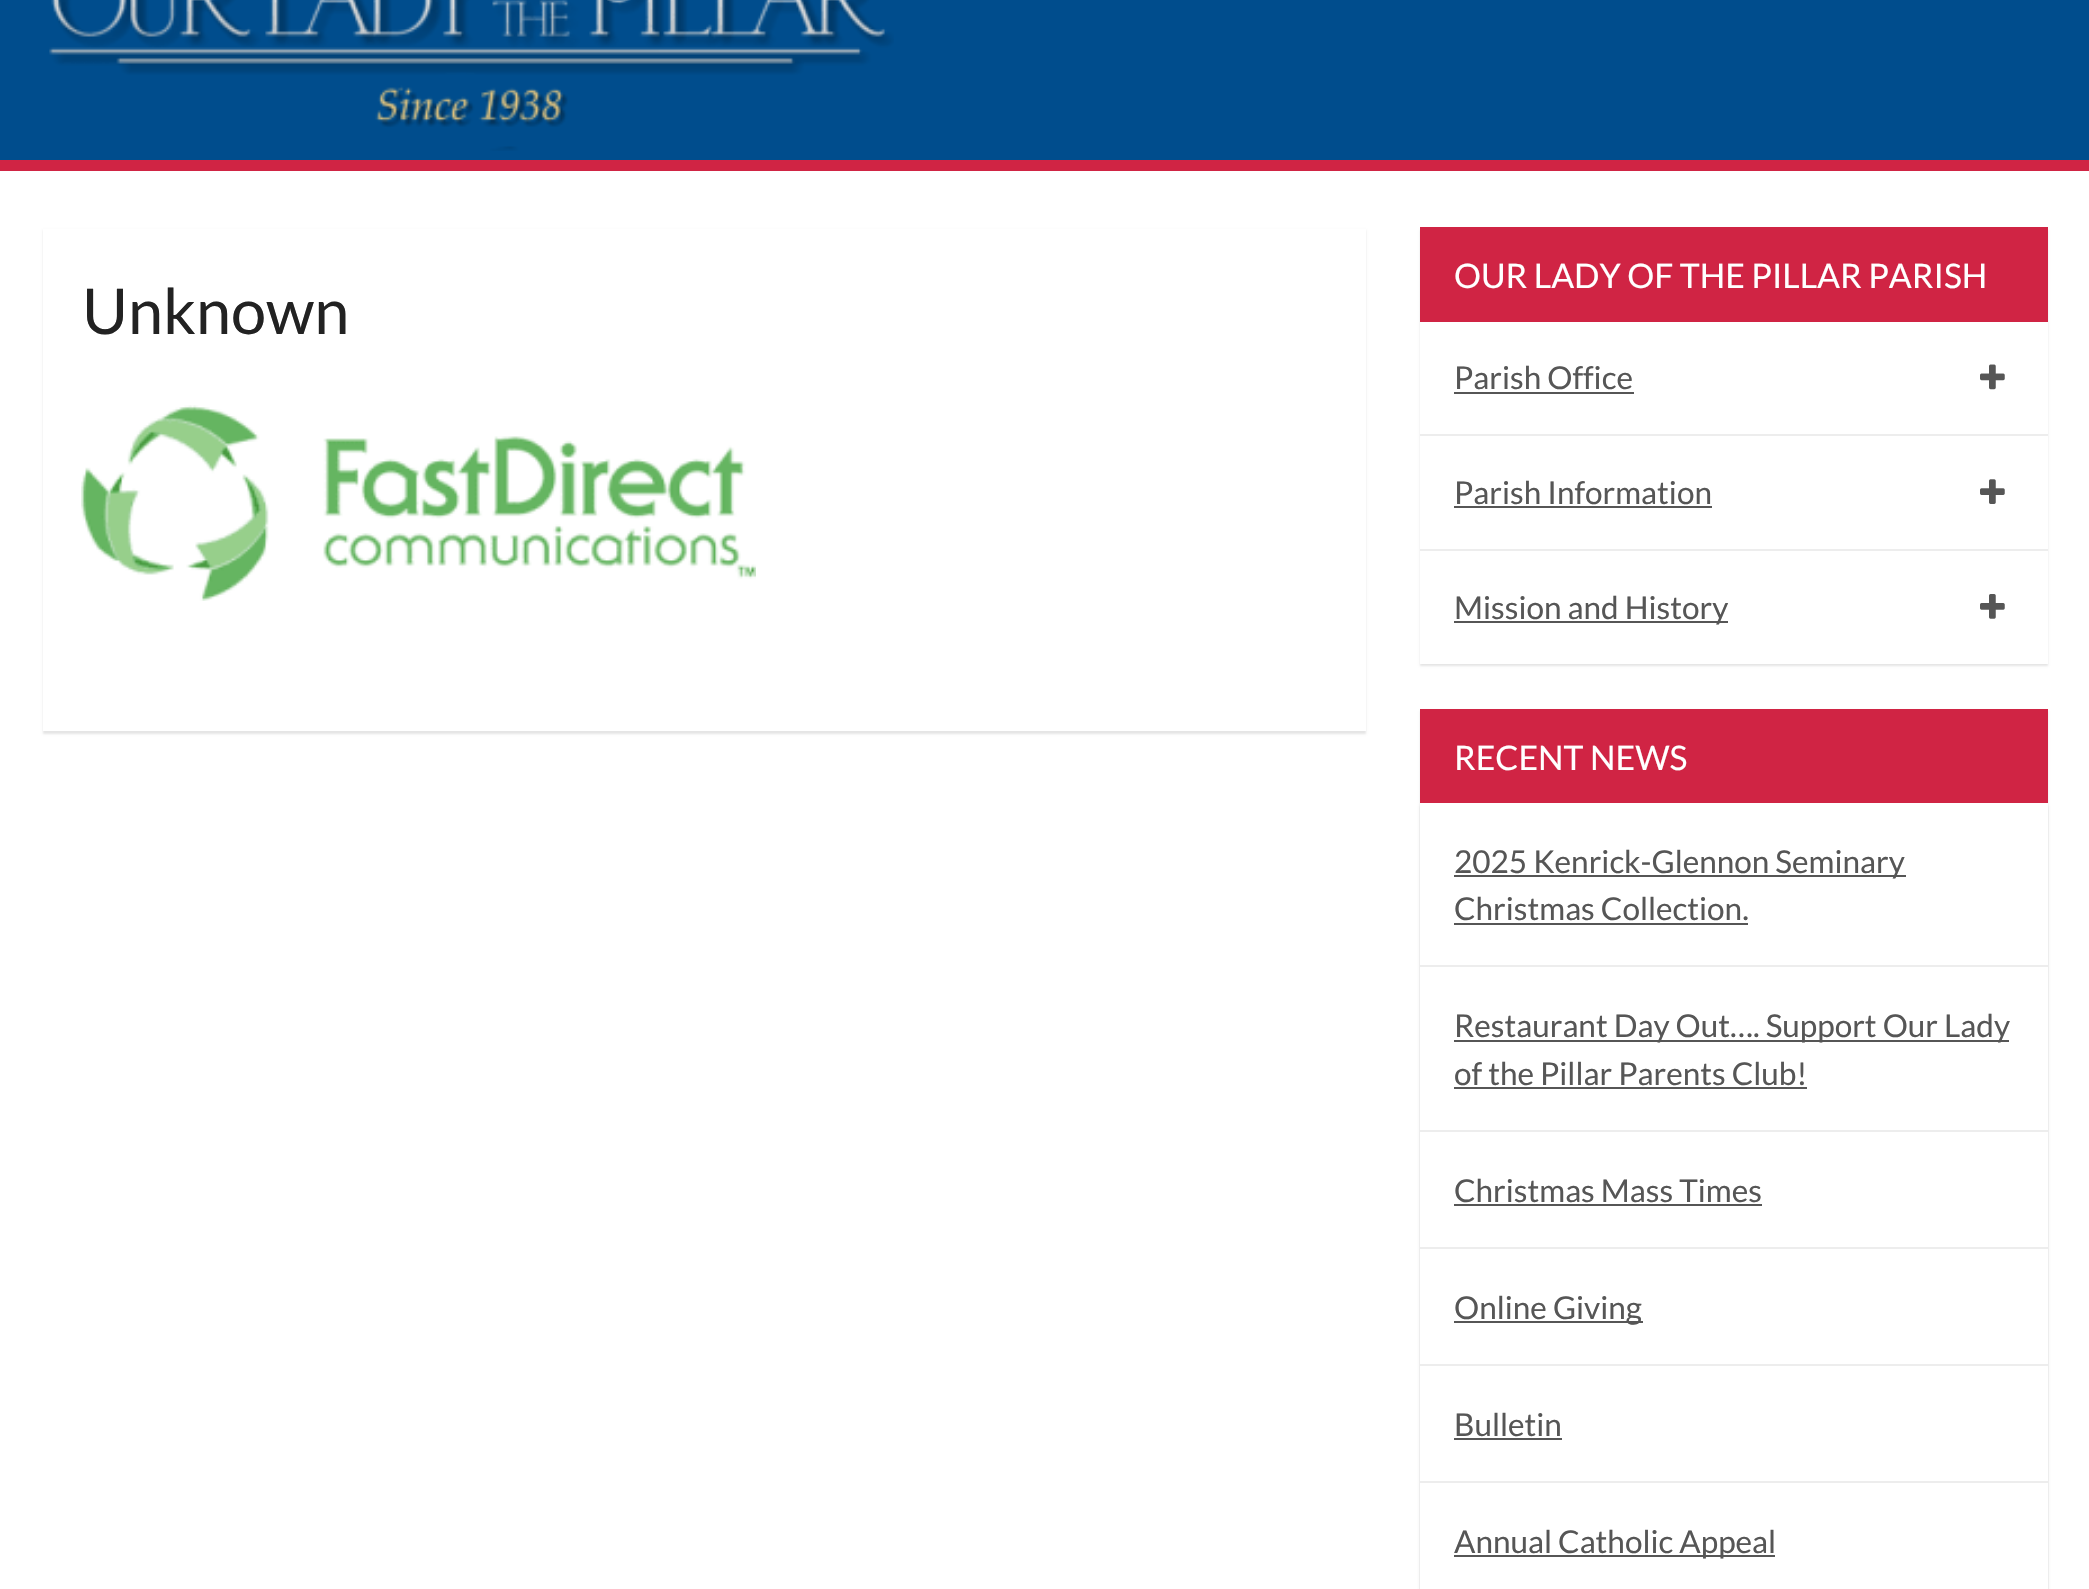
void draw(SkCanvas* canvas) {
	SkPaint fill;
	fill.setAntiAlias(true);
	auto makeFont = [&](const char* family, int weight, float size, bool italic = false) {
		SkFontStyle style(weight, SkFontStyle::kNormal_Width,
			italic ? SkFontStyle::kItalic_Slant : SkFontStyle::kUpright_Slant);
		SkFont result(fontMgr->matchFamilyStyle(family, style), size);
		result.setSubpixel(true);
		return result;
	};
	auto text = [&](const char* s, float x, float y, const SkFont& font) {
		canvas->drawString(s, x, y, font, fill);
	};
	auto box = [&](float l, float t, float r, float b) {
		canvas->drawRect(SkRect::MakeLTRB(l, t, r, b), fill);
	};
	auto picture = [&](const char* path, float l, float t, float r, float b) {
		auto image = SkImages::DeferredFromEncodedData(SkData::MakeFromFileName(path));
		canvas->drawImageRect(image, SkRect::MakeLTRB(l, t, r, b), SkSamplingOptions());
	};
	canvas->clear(0xFFFFFFFF);
	fill.setColor(0xFF004D8D);
	box(0, 0, 2089, 160);
	fill.setColor(0xFFD02444);
	box(0, 160, 2089, 171);
	picture("image0.png", 49, 0, 894, 151);
	fill.setColor(0x1A000000);
	fill.setMaskFilter(SkMaskFilter::MakeBlur(kNormal_SkBlurStyle, 1));
	canvas->drawRect(SkRect::MakeLTRB(43, 230, 1366, 734), fill);
	fill.setMaskFilter(nullptr);
	fill.setColor(0xFFFFFFFF);
	box(43, 229, 1366, 731);
	picture("image1.png", 81, 405, 756, 601);
	fill.setColor(0x1A000000);
	fill.setMaskFilter(SkMaskFilter::MakeBlur(kNormal_SkBlurStyle, 1));
	canvas->drawRect(SkRect::MakeLTRB(1420, 230, 2048, 666), fill);
	fill.setMaskFilter(nullptr);
	fill.setColor(0xFFFFFFFF);
	box(1420, 322, 2048, 664);
	fill.setColor(0xFFD02444);
	box(1420, 227, 2048, 322);
	fill.setColor(0xFFEDEDED);
	box(1420, 434, 2048, 436);
	fill.setColor(0xFF565656);
	box(1454, 392, 1634, 394);
	picture("image2.png", 1980, 364, 2005, 390);
	fill.setColor(0xFFEDEDED);
	box(1420, 549, 2048, 551);
	fill.setColor(0xFF565656);
	box(1454, 506, 1712, 508);
	picture("image3.png", 1980, 479, 2005, 504);
	box(1454, 621, 1728, 623);
	picture("image4.png", 1980, 594, 2005, 619);
	fill.setColor(0x1A000000);
	fill.setMaskFilter(SkMaskFilter::MakeBlur(kNormal_SkBlurStyle, 1));
	canvas->drawRect(SkRect::MakeLTRB(1420, 711, 2048, 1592), fill);
	fill.setMaskFilter(nullptr);
	fill.setColor(0xFFD02444);
	box(1420, 709, 2048, 803);
	fill.setColor(0x1A000000);
	fill.setMaskFilter(SkMaskFilter::MakeBlur(kNormal_SkBlurStyle, 1));
	canvas->drawRect(SkRect::MakeLTRB(1420, 806, 2048, 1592), fill);
	fill.setMaskFilter(nullptr);
	fill.setColor(0xFFFFFFFF);
	box(1420, 803, 2048, 1589);
	fill.setColor(0xFFEDEDED);
	box(1420, 965, 2048, 967);
	fill.setColor(0xFF565656);
	box(1454, 875, 1906, 877);
	box(1454, 923, 1748, 925);
	fill.setColor(0xFFEDEDED);
	box(1420, 1130, 2048, 1132);
	fill.setColor(0xFF565656);
	box(1454, 1040, 2009, 1042);
	box(1454, 1087, 1807, 1089);
	fill.setColor(0xFFEDEDED);
	box(1420, 1247, 2048, 1249);
	fill.setColor(0xFF565656);
	box(1454, 1204, 1762, 1206);
	fill.setColor(0xFFEDEDED);
	box(1420, 1364, 2048, 1366);
	fill.setColor(0xFF565656);
	box(1454, 1321, 1643, 1323);
	fill.setColor(0xFFEDEDED);
	box(1420, 1481, 2048, 1483);
	fill.setColor(0xFF565656);
	box(1454, 1438, 1562, 1440);
	box(1454, 1555, 1775, 1557);
	auto font1 = makeFont("Lato", 400, 63);
	fill.setColor(0xFF222222);
	text("Unknown", 82, 334, font1);
	auto font2 = makeFont("Lato", 400, 33.75f);
	fill.setColor(0xFFFFFFFF);
	text("OUR LADY OF THE PILLAR PARISH", 1454, 288, font2);
	auto font3 = makeFont("Lato", 400, 31.5f);
	fill.setColor(0xFF565656);
	text("Parish Office", 1454, 389, font3);
	text("Parish Information", 1454, 504, font3);
	text("Mission and History", 1454, 619, font3);
	fill.setColor(0xFFFFFFFF);
	text("RECENT NEWS", 1454, 770, font2);
	fill.setColor(0xFF565656);
	text("2025 Kenrick-Glennon Seminary", 1454, 873, font3);
	text("Christmas Collection.", 1454, 920, font3);
	text("Restaurant Day Out…. Support Our Lady", 1454, 1037, font3);
	text("of the Pillar Parents Club!", 1454, 1085, font3);
	text("Christmas Mass Times", 1454, 1202, font3);
	text("Online Giving", 1454, 1319, font3);
	text("Bulletin", 1454, 1436, font3);
	text("Annual Catholic Appeal", 1454, 1553, font3);
}
